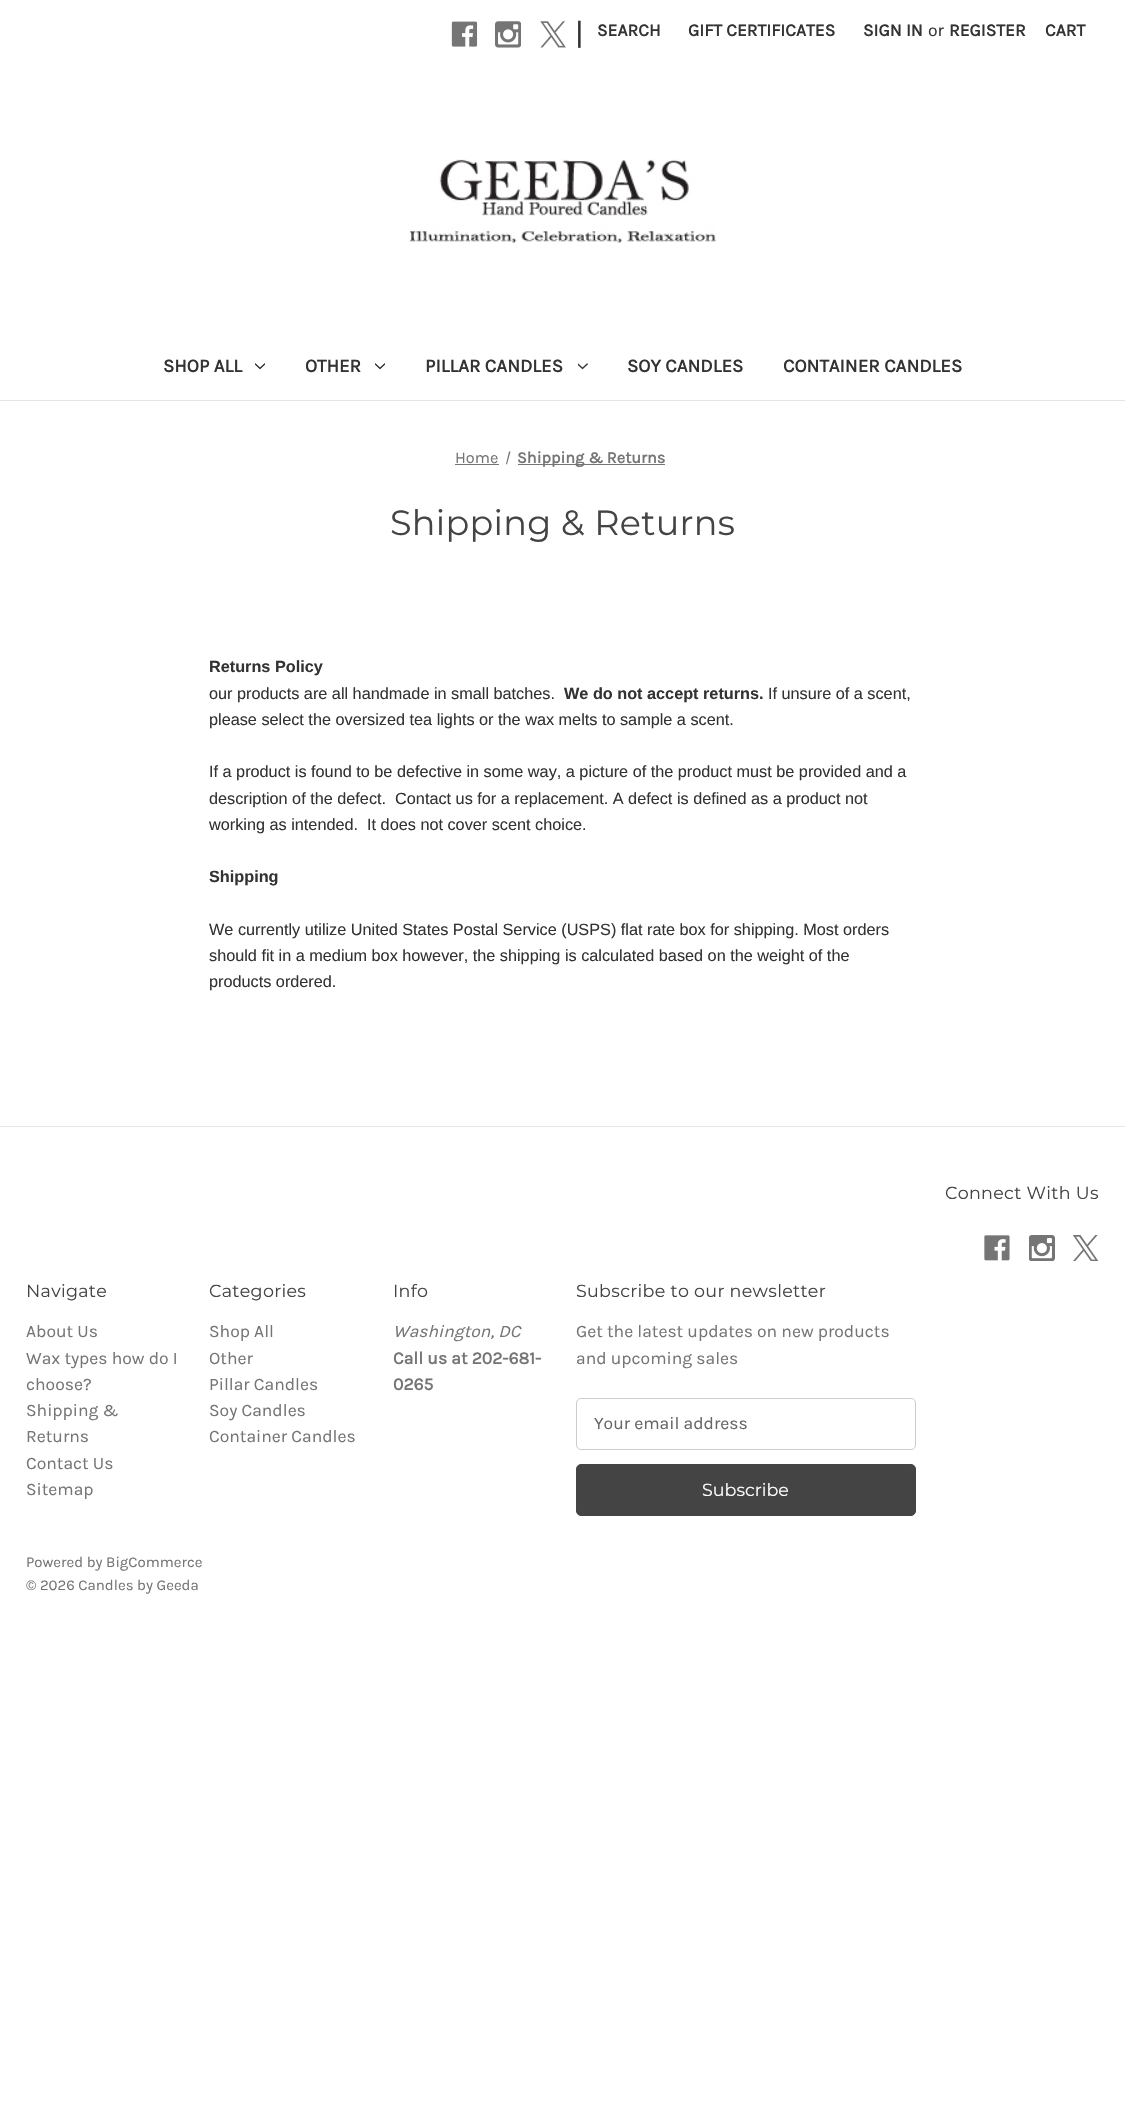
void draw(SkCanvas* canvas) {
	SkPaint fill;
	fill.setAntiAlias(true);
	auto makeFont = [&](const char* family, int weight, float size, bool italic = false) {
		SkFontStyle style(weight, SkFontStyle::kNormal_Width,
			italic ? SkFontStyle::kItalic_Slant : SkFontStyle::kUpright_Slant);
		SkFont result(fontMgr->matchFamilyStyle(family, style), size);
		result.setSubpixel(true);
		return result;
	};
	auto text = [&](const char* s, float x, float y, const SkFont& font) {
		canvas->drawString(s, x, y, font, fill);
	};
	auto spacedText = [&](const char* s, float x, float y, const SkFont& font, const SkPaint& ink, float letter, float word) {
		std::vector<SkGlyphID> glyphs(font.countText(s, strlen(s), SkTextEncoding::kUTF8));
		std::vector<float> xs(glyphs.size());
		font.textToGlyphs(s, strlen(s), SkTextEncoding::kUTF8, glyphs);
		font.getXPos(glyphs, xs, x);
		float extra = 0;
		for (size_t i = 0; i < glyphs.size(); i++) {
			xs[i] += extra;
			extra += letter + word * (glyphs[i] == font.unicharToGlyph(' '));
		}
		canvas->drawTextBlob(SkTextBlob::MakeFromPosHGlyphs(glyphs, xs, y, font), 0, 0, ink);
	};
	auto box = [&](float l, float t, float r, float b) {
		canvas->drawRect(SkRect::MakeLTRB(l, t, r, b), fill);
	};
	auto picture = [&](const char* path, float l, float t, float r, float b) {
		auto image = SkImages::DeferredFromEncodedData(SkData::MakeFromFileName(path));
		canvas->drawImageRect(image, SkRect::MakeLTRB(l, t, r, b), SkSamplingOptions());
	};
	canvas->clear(0xFFFFFFFF);
	fill.setColor(0xFFE5E5E5);
	box(0, 400, 1125, 401);
	picture("image0.png", 451, 21, 478, 47);
	picture("image1.png", 495, 21, 521, 48);
	picture("image2.png", 540, 21, 566, 48);
	picture("image3.png", 409, 159, 717, 243);
	picture("image4.png", 255, 363, 265, 370);
	picture("image4.png", 375, 363, 385, 370);
	picture("image5.png", 578, 363, 588, 370);
	fill.setColor(0xFF757575);
	box(455, 464, 499, 465);
	canvas->drawPath(SkPathBuilder().moveTo(509, 451.5f).lineTo(510.5f, 451.5f).lineTo(507, 464.5f).lineTo(506, 464).close().detach(), fill);
	box(518, 464, 665, 465);
	fill.setColor(0xFFE5E5E5);
	box(0, 1126, 1125, 1127);
	picture("image6.png", 984, 1235, 1010, 1261);
	picture("image7.png", 1029, 1235, 1055, 1261);
	picture("image8.png", 1073, 1235, 1099, 1261);
	fill.setStyle(SkPaint::kStroke_Style);
	fill.setStrokeWidth(1);
	fill.setColor(0xFFCCCCCC);
	canvas->drawRoundRect(SkRect::MakeLTRB(576.5f, 1398.5f, 915.5f, 1449.5f), 4.5f, 4.5f, fill);
	fill.setStyle(SkPaint::kFill_Style);
	fill.setColor(0xFF444444);
	canvas->drawRoundRect(SkRect::MakeLTRB(576.5f, 1464.5f, 915.5f, 1515.5f), 4.5f, 4.5f, fill);
	fill.setStyle(SkPaint::kStroke_Style);
	canvas->drawRoundRect(SkRect::MakeLTRB(576.5f, 1464.5f, 915.5f, 1515.5f), 4.5f, 4.5f, fill);
	auto font1 = makeFont("Karla", 400, 31);
	fill.setStyle(SkPaint::kFill_Style);
	fill.setColor(0xFF333333);
	text("|", 575, 44, font1);
	auto font2 = makeFont("Karla", 700, 17.5f);
	text("SEARCH", 597, 36, font2);
	text("GIFT CERTIFICATES", 688, 36, font2);
	text("SIGN IN", 863, 36, font2);
	auto font3 = makeFont("Karla", 400, 17.5f);
	text("or", 928, 36, font3);
	text("REGISTER", 949, 36, font2);
	text("CART", 1045, 36, font2);
	auto font4 = makeFont("Karla", 700, 18.75f);
	text("SHOP ALL", 163, 372, font4);
	text("OTHER", 305, 372, font4);
	text("PILLAR CANDLES", 425, 372, font4);
	text("SOY CANDLES", 627, 372, font4);
	text("CONTAINER CANDLES", 783, 372, font4);
	auto font5 = makeFont("Karla", 400, 16.25f);
	fill.setColor(0xFF757575);
	text("Home", 455, 463, font5);
	auto font6 = makeFont("Karla", 700, 16.25f);
	text("Shipping & Returns", 517, 463, font6);
	auto font7 = makeFont("Montserrat", 100, 35);
	fill.setColor(0xFF444444);
	spacedText("Shipping & Returns", 390, 535, font7, fill, 0.3f, 0);
	auto font8 = makeFont("Liberation Sans", 700, 16.25f);
	fill.setColor(0xFF333333);
	text("Returns Policy", 209, 672, font8);
	auto font9 = makeFont("Liberation Sans", 400, 16.25f);
	text("our products are all handmade in small batches.", 209, 699, font9);
	text("We do not accept returns.", 564, 699, font8);
	text("If unsure of a scent,", 768, 699, font9);
	text("please select the oversized tea lights or the wax melts to sample a scent.", 209, 725, font9);
	text("If a product is found to be defective in some way, a picture of the product must be provided and a", 209, 777, font9);
	text("description of the defect.  Contact us for a replacement. A defect is defined as a product not", 209, 804, font9);
	text("working as intended.  It does not cover scent choice.", 209, 830, font9);
	text("Shipping", 209, 882, font8);
	text("We currently utilize United States Postal Service (USPS) flat rate box for shipping. Most orders", 209, 935, font9);
	text("should fit in a medium box however, the shipping is calculated based on the weight of the", 209, 961, font9);
	text("products ordered.", 209, 987, font9);
	auto font10 = makeFont("Montserrat", 100, 17.5f);
	fill.setColor(0xFF444444);
	spacedText("Connect With Us", 945, 1199, font10, fill, 0.3f, 0);
	spacedText("Navigate", 26, 1297, font10, fill, 0.3f, 0);
	fill.setColor(0xFF757575);
	text("About Us", 26, 1337, font3);
	text("Wax types how do I", 26, 1364, font3);
	text("choose?", 26, 1390, font3);
	text("Shipping &", 26, 1416, font3);
	text("Returns", 26, 1442, font3);
	text("Contact Us", 26, 1469, font3);
	text("Sitemap", 26, 1495, font3);
	fill.setColor(0xFF444444);
	spacedText("Categories", 209, 1297, font10, fill, 0.3f, 0);
	fill.setColor(0xFF757575);
	text("Shop All", 209, 1337, font3);
	text("Other", 209, 1364, font3);
	text("Pillar Candles", 209, 1390, font3);
	text("Soy Candles", 209, 1416, font3);
	text("Container Candles", 209, 1442, font3);
	fill.setColor(0xFF444444);
	spacedText("Info", 393, 1297, font10, fill, 0.3f, 0);
	auto font11 = makeFont("Karla", 400, 17.5f, true);
	fill.setColor(0xFF757575);
	text("Washington, DC", 393, 1337, font11);
	text("Call us at 202-681-", 393, 1364, font2);
	text("0265", 393, 1390, font2);
	fill.setColor(0xFF444444);
	spacedText("Subscribe to our newsletter", 576, 1297, font10, fill, 0.3f, 0);
	fill.setColor(0xFF757575);
	text("Get the latest updates on new products", 576, 1337, font3);
	text("and upcoming sales", 576, 1364, font3);
	fill.setColor(0xFF666666);
	text("Your email address", 594, 1429, font3);
	fill.setColor(0xFFFFFFFF);
	text("Subscribe", 702, 1496, font10);
	auto font12 = makeFont("Karla", 400, 15);
	fill.setColor(0xFF757575);
	text("Powered by BigCommerce", 26, 1567, font12);
	text("© 2026 Candles by Geeda", 26, 1590, font12);
}
